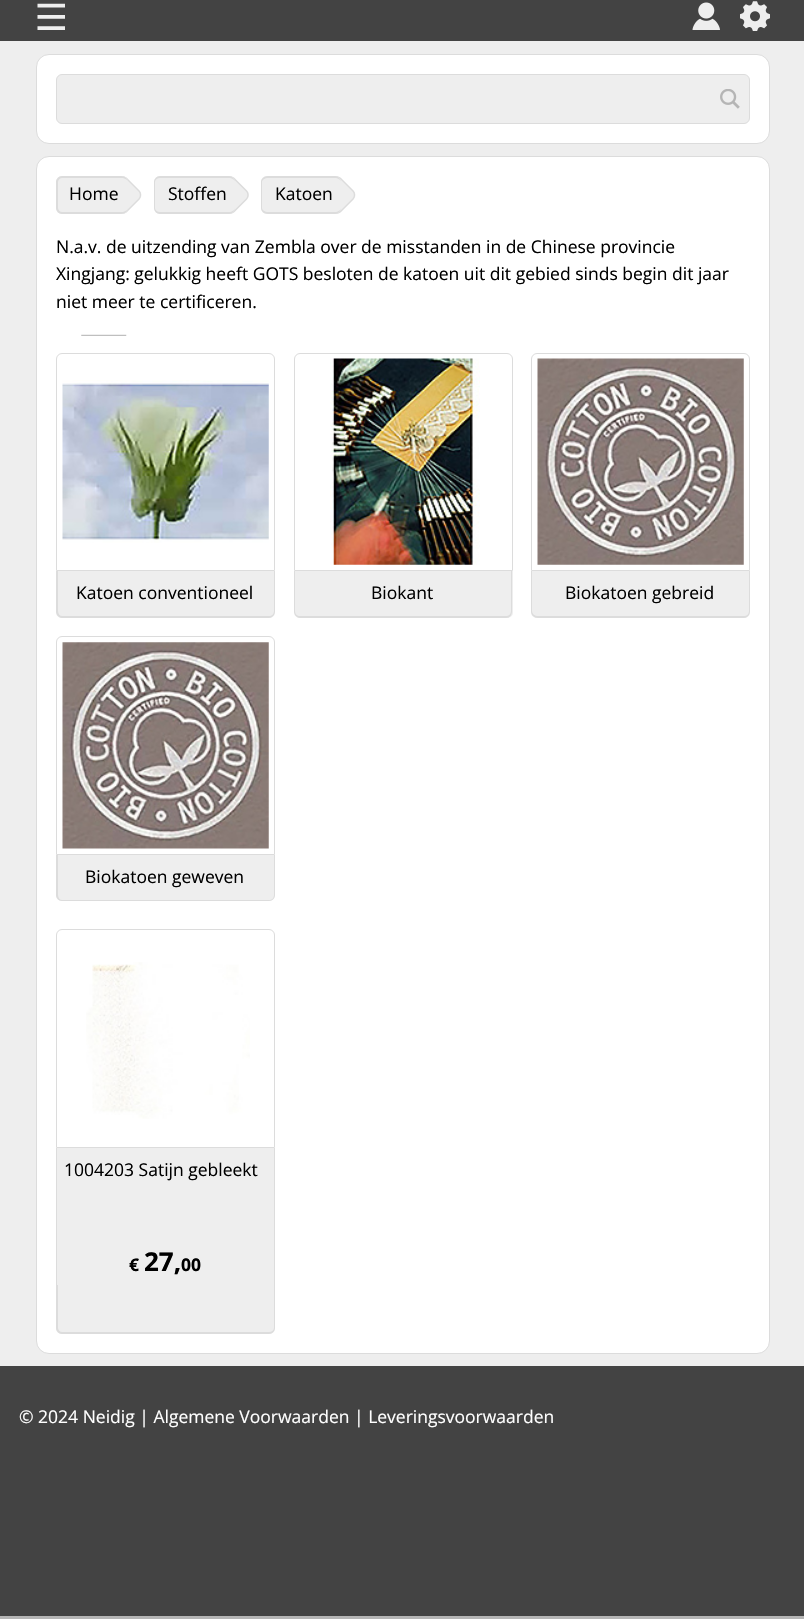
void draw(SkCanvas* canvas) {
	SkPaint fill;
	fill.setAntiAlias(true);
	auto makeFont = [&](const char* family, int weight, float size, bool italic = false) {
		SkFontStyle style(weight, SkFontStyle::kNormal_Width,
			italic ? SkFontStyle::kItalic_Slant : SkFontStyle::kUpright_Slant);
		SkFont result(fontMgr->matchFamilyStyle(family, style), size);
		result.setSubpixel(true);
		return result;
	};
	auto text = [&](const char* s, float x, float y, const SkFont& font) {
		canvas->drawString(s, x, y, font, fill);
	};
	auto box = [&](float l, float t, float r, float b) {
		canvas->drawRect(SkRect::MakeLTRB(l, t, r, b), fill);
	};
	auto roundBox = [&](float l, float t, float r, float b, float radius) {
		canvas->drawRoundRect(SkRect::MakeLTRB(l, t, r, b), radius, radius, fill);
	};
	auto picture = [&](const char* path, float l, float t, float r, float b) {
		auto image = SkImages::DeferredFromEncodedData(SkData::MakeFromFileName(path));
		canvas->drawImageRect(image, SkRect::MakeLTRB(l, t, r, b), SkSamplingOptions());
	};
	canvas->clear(0xFF434343);
	picture("image0.png", 37, 3, 65, 30);
	picture("image1.png", 692, 2, 720, 30);
	picture("image2.png", 740, 1, 770, 31);
	fill.setColor(0xFFEEEEEE);
	box(0, 41, 804, 1366);
	fill.setColor(0xFFFFFFFF);
	canvas->drawRoundRect(SkRect::MakeLTRB(36.5f, 54.5f, 769.5f, 143.5f), 12.5f, 12.5f, fill);
	fill.setStyle(SkPaint::kStroke_Style);
	fill.setStrokeWidth(1);
	fill.setColor(0xFFDCDCDC);
	canvas->drawRoundRect(SkRect::MakeLTRB(36.5f, 54.5f, 769.5f, 143.5f), 12.5f, 12.5f, fill);
	fill.setStyle(SkPaint::kFill_Style);
	fill.setColor(0xFFEEEEEE);
	canvas->drawRoundRect(SkRect::MakeLTRB(56.5f, 74.5f, 749.5f, 123.5f), 5.5f, 5.5f, fill);
	fill.setStyle(SkPaint::kStroke_Style);
	fill.setColor(0xFFDCDCDC);
	canvas->drawRoundRect(SkRect::MakeLTRB(56.5f, 74.5f, 749.5f, 123.5f), 5.5f, 5.5f, fill);
	picture("image3.png", 720, 89, 740, 109);
	fill.setStyle(SkPaint::kFill_Style);
	fill.setColor(0xFFFFFFFF);
	canvas->drawRoundRect(SkRect::MakeLTRB(36.5f, 156.5f, 769.5f, 1353.5f), 12.5f, 12.5f, fill);
	fill.setStyle(SkPaint::kStroke_Style);
	fill.setColor(0xFFDCDCDC);
	canvas->drawRoundRect(SkRect::MakeLTRB(36.5f, 156.5f, 769.5f, 1353.5f), 12.5f, 12.5f, fill);
	fill.setStyle(SkPaint::kFill_Style);
	fill.setColor(0xFFEEEEEE);
	canvas->drawPath(SkPathBuilder().moveTo(127, 178).lineTo(139.5f, 190.5f).cubicTo(142, 193, 142, 197, 139.5f, 199.5f).lineTo(127, 212).cubicTo(124.5f, 214, 120.5f, 214, 118, 212).lineTo(106, 199.5f).cubicTo(103.5f, 197, 103.5f, 193, 106, 190.5f).lineTo(118, 178).cubicTo(120.5f, 176, 124.5f, 176, 127, 178).close().detach(), fill);
	fill.setStyle(SkPaint::kStroke_Style);
	fill.setStrokeWidth(1.3f);
	fill.setColor(0xFFDCDCDC);
	canvas->drawPath(SkPathBuilder().moveTo(126.5f, 178.5f).lineTo(139, 191).cubicTo(141, 193, 141, 197, 139, 199).lineTo(126.5f, 211.5f).cubicTo(124.5f, 213.5f, 121, 213.5f, 118.5f, 211.5f).lineTo(106, 199).cubicTo(104, 197, 104, 193, 106, 191).lineTo(118.5f, 178.5f).cubicTo(121, 176.5f, 124.5f, 176.5f, 126.5f, 178.5f).close().detach(), fill);
	fill.setStyle(SkPaint::kFill_Style);
	fill.setColor(0xFFEEEEEE);
	roundBox(56, 176, 128, 214, 6);
	fill.setColor(0xFFDCDCDC);
	canvas->drawPath(SkPathBuilder(SkPathFillType::kEvenOdd).moveTo(62, 176).lineTo(121, 176).cubicTo(125, 176, 128, 179, 128, 182).lineTo(128, 208).cubicTo(128, 211, 125, 214, 121, 214).lineTo(62, 214).cubicTo(59, 214, 56, 211, 56, 208).lineTo(56, 182).cubicTo(56, 179, 59, 176, 62, 176).close().moveTo(62, 178).lineTo(121, 178).cubicTo(125, 178, 128, 180, 128, 182).lineTo(128, 208).cubicTo(128, 210, 125, 212, 121, 212).lineTo(62, 212).cubicTo(60, 212, 58, 210, 58, 208).lineTo(58, 182).cubicTo(58, 180, 60, 178, 62, 178).close().detach(), fill);
	fill.setColor(0xFFEEEEEE);
	canvas->drawPath(SkPathBuilder().moveTo(234.5f, 178).lineTo(247, 190.5f).cubicTo(249.5f, 193, 249.5f, 197, 247, 199.5f).lineTo(234.5f, 212).cubicTo(232, 214, 228, 214, 225.5f, 212).lineTo(213.5f, 199.5f).cubicTo(211, 197, 211, 193, 213.5f, 190.5f).lineTo(225.5f, 178).cubicTo(228, 176, 232, 176, 234.5f, 178).close().detach(), fill);
	fill.setStyle(SkPaint::kStroke_Style);
	fill.setColor(0xFFDCDCDC);
	canvas->drawPath(SkPathBuilder().moveTo(234, 178.5f).lineTo(246.5f, 191).cubicTo(248.5f, 193, 248.5f, 197, 246.5f, 199).lineTo(234, 211.5f).cubicTo(232, 213.5f, 228.5f, 213.5f, 226, 211.5f).lineTo(213.5f, 199).cubicTo(211.5f, 197, 211.5f, 193, 213.5f, 191).lineTo(226, 178.5f).cubicTo(228.5f, 176.5f, 232, 176.5f, 234, 178.5f).close().detach(), fill);
	fill.setStyle(SkPaint::kFill_Style);
	fill.setColor(0xFFEEEEEE);
	roundBox(154, 176, 235, 214, 6);
	fill.setColor(0xFFDCDCDC);
	canvas->drawPath(SkPathBuilder(SkPathFillType::kEvenOdd).moveTo(160, 176).lineTo(229, 176).cubicTo(232, 176, 235, 179, 235, 182).lineTo(235, 208).cubicTo(235, 211, 232, 214, 229, 214).lineTo(160, 214).cubicTo(157, 214, 154, 211, 154, 208).lineTo(154, 182).cubicTo(154, 179, 157, 176, 160, 176).close().moveTo(160, 178).lineTo(229, 178).cubicTo(232, 178, 235, 180, 235, 182).lineTo(235, 208).cubicTo(235, 210, 232, 212, 229, 212).lineTo(160, 212).cubicTo(157, 212, 155, 210, 155, 208).lineTo(155, 182).cubicTo(155, 180, 157, 178, 160, 178).close().detach(), fill);
	fill.setColor(0xFFEEEEEE);
	canvas->drawPath(SkPathBuilder().moveTo(341, 178).lineTo(353.5f, 190.5f).cubicTo(356, 193, 356, 197, 353.5f, 199.5f).lineTo(341, 212).cubicTo(338.5f, 214, 334.5f, 214, 332, 212).lineTo(320, 199.5f).cubicTo(317.5f, 197, 317.5f, 193, 320, 190.5f).lineTo(332, 178).cubicTo(334.5f, 176, 338.5f, 176, 341, 178).close().detach(), fill);
	fill.setStyle(SkPaint::kStroke_Style);
	fill.setColor(0xFFDCDCDC);
	canvas->drawPath(SkPathBuilder().moveTo(340.5f, 178.5f).lineTo(353, 191).cubicTo(355, 193, 355, 197, 353, 199).lineTo(340.5f, 211.5f).cubicTo(338.5f, 213.5f, 335, 213.5f, 332.5f, 211.5f).lineTo(320, 199).cubicTo(318, 197, 318, 193, 320, 191).lineTo(332.5f, 178.5f).cubicTo(335, 176.5f, 338.5f, 176.5f, 340.5f, 178.5f).close().detach(), fill);
	fill.setStyle(SkPaint::kFill_Style);
	fill.setColor(0xFFEEEEEE);
	roundBox(261, 176, 341, 214, 6);
	fill.setColor(0xFFDCDCDC);
	canvas->drawPath(SkPathBuilder(SkPathFillType::kEvenOdd).moveTo(268, 176).lineTo(335, 176).cubicTo(338, 176, 341, 179, 341, 182).lineTo(341, 208).cubicTo(341, 211, 338, 214, 335, 214).lineTo(268, 214).cubicTo(264, 214, 261, 211, 261, 208).lineTo(261, 182).cubicTo(261, 179, 264, 176, 268, 176).close().moveTo(268, 178).lineTo(335, 178).cubicTo(338, 178, 341, 180, 341, 182).lineTo(341, 208).cubicTo(341, 210, 338, 212, 335, 212).lineTo(268, 212).cubicTo(265, 212, 262, 210, 262, 208).lineTo(262, 182).cubicTo(262, 180, 265, 178, 268, 178).close().detach(), fill);
	picture("image4.png", 81, 334, 127, 336);
	fill.setStyle(SkPaint::kStroke_Style);
	fill.setStrokeWidth(1);
	canvas->drawPath(SkPathBuilder().moveTo(62, 353.5f).lineTo(269, 353.5f).cubicTo(272, 353.5f, 274.5f, 356, 274.5f, 359).lineTo(274.5f, 570.5f).lineTo(56.5f, 570.5f).lineTo(56.5f, 359).cubicTo(56.5f, 356, 59, 353.5f, 62, 353.5f).close().detach(), fill);
	picture("image5.png", 62, 380, 269, 543);
	fill.setStyle(SkPaint::kFill_Style);
	fill.setColor(0xFFEEEEEE);
	canvas->drawPath(SkPathBuilder().moveTo(56, 571).lineTo(275, 571).lineTo(275, 612).cubicTo(275, 615.5f, 272.5f, 618, 269, 618).lineTo(62, 618).cubicTo(58.5f, 618, 56, 615.5f, 56, 612).close().detach(), fill);
	fill.setColor(0xFFDCDCDC);
	canvas->drawPath(SkPathBuilder(SkPathFillType::kEvenOdd).moveTo(56, 571).lineTo(275, 571).lineTo(275, 611).cubicTo(275, 615, 272, 618, 269, 618).lineTo(62, 618).cubicTo(59, 618, 56, 615, 56, 611).close().moveTo(58, 571).lineTo(274, 571).lineTo(274, 611).cubicTo(274, 614, 272, 616, 269, 616).lineTo(62, 616).cubicTo(60, 616, 58, 614, 58, 611).close().detach(), fill);
	fill.setStyle(SkPaint::kStroke_Style);
	canvas->drawPath(SkPathBuilder().moveTo(300, 353.5f).lineTo(507, 353.5f).cubicTo(510, 353.5f, 512.5f, 356, 512.5f, 359).lineTo(512.5f, 570.5f).lineTo(294.5f, 570.5f).lineTo(294.5f, 359).cubicTo(294.5f, 356, 297, 353.5f, 300, 353.5f).close().detach(), fill);
	picture("image6.png", 330, 358, 480, 565);
	fill.setStyle(SkPaint::kFill_Style);
	fill.setColor(0xFFEEEEEE);
	canvas->drawPath(SkPathBuilder().moveTo(294, 571).lineTo(513, 571).lineTo(513, 612).cubicTo(513, 615.5f, 510.5f, 618, 507, 618).lineTo(300, 618).cubicTo(296.5f, 618, 294, 615.5f, 294, 612).close().detach(), fill);
	fill.setColor(0xFFDCDCDC);
	canvas->drawPath(SkPathBuilder(SkPathFillType::kEvenOdd).moveTo(294, 571).lineTo(512, 571).lineTo(512, 611).cubicTo(512, 615, 510, 618, 506, 618).lineTo(300, 618).cubicTo(297, 618, 294, 615, 294, 611).close().moveTo(295, 571).lineTo(511, 571).lineTo(511, 611).cubicTo(511, 614, 509, 616, 506, 616).lineTo(300, 616).cubicTo(297, 616, 295, 614, 295, 611).close().detach(), fill);
	fill.setStyle(SkPaint::kStroke_Style);
	canvas->drawPath(SkPathBuilder().moveTo(537, 353.5f).lineTo(744, 353.5f).cubicTo(747, 353.5f, 749.5f, 356, 749.5f, 359).lineTo(749.5f, 570.5f).lineTo(531.5f, 570.5f).lineTo(531.5f, 359).cubicTo(531.5f, 356, 534, 353.5f, 537, 353.5f).close().detach(), fill);
	picture("image7.png", 537, 358, 744, 565);
	fill.setStyle(SkPaint::kFill_Style);
	fill.setColor(0xFFEEEEEE);
	canvas->drawPath(SkPathBuilder().moveTo(531, 571).lineTo(750, 571).lineTo(750, 612).cubicTo(750, 615.5f, 747.5f, 618, 744, 618).lineTo(537, 618).cubicTo(533.5f, 618, 531, 615.5f, 531, 612).close().detach(), fill);
	fill.setColor(0xFFDCDCDC);
	canvas->drawPath(SkPathBuilder(SkPathFillType::kEvenOdd).moveTo(531, 571).lineTo(750, 571).lineTo(750, 611).cubicTo(750, 615, 747, 618, 744, 618).lineTo(538, 618).cubicTo(534, 618, 531, 615, 531, 611).close().moveTo(532, 571).lineTo(749, 571).lineTo(749, 611).cubicTo(749, 614, 747, 616, 744, 616).lineTo(538, 616).cubicTo(535, 616, 532, 614, 532, 611).close().detach(), fill);
	fill.setStyle(SkPaint::kStroke_Style);
	canvas->drawPath(SkPathBuilder().moveTo(62, 636.5f).lineTo(269, 636.5f).cubicTo(272, 636.5f, 274.5f, 639, 274.5f, 642).lineTo(274.5f, 854.5f).lineTo(56.5f, 854.5f).lineTo(56.5f, 642).cubicTo(56.5f, 639, 59, 636.5f, 62, 636.5f).close().detach(), fill);
	picture("image8.png", 62, 642, 269, 849);
	fill.setStyle(SkPaint::kFill_Style);
	fill.setColor(0xFFEEEEEE);
	canvas->drawPath(SkPathBuilder().moveTo(56, 855).lineTo(275, 855).lineTo(275, 895).cubicTo(275, 898.5f, 272.5f, 901, 269, 901).lineTo(62, 901).cubicTo(58.5f, 901, 56, 898.5f, 56, 895).close().detach(), fill);
	fill.setColor(0xFFDCDCDC);
	canvas->drawPath(SkPathBuilder(SkPathFillType::kEvenOdd).moveTo(56, 855).lineTo(275, 855).lineTo(275, 895).cubicTo(275, 898, 272, 901, 269, 901).lineTo(62, 901).cubicTo(59, 901, 56, 898, 56, 895).close().moveTo(58, 855).lineTo(274, 855).lineTo(274, 895).cubicTo(274, 898, 272, 900, 269, 900).lineTo(62, 900).cubicTo(60, 900, 58, 898, 58, 895).close().detach(), fill);
	fill.setStyle(SkPaint::kStroke_Style);
	canvas->drawPath(SkPathBuilder().moveTo(62, 929.5f).lineTo(269, 929.5f).cubicTo(272, 929.5f, 274.5f, 932, 274.5f, 935).lineTo(274.5f, 1147.5f).lineTo(56.5f, 1147.5f).lineTo(56.5f, 935).cubicTo(56.5f, 932, 59, 929.5f, 62, 929.5f).close().detach(), fill);
	picture("image9.png", 86, 962, 250, 1119);
	fill.setStyle(SkPaint::kFill_Style);
	fill.setColor(0xFFEEEEEE);
	box(57, 1148, 274, 1285);
	fill.setColor(0xFFDCDCDC);
	box(274, 1148, 275, 1285);
	box(56, 1148, 57, 1285);
	fill.setColor(0xFFEEEEEE);
	canvas->drawPath(SkPathBuilder().moveTo(56, 1285).lineTo(275, 1285).lineTo(275, 1328).cubicTo(275, 1331.5f, 272.5f, 1334, 269, 1334).lineTo(62, 1334).cubicTo(58.5f, 1334, 56, 1331.5f, 56, 1328).close().detach(), fill);
	fill.setColor(0xFFDCDCDC);
	canvas->drawPath(SkPathBuilder(SkPathFillType::kEvenOdd).moveTo(56, 1285).lineTo(275, 1285).lineTo(275, 1328).cubicTo(275, 1331, 272, 1334, 269, 1334).lineTo(62, 1334).cubicTo(59, 1334, 56, 1331, 56, 1328).close().moveTo(58, 1285).lineTo(274, 1285).lineTo(274, 1328).cubicTo(274, 1330, 272, 1332, 269, 1332).lineTo(62, 1332).cubicTo(60, 1332, 58, 1330, 58, 1328).close().detach(), fill);
	fill.setColor(0xFFB5B5B5);
	box(0, 1616, 804, 1619);
	auto font1 = makeFont("Open Sans", 400, 17.5f);
	fill.setColor(0xFF000000);
	text("Home", 69, 200, font1);
	text("Stoffen", 168, 200, font1);
	text("Katoen", 275, 200, font1);
	text("N.a.v. de uitzending van Zembla over de misstanden in de Chinese provincie", 56, 253, font1);
	text("Xingjang: gelukkig heeft GOTS besloten de katoen uit dit gebied sinds begin dit jaar", 56, 280, font1);
	text("niet meer te certificeren.", 56, 308, font1);
	text("Katoen conventioneel", 76, 599, font1);
	text("Biokant", 371, 599, font1);
	text("Biokatoen gebreid", 565, 599, font1);
	text("Biokatoen geweven", 85, 883, font1);
	text("1004203 Satijn gebleekt", 64, 1176, font1);
	auto font2 = makeFont("Open Sans", 700, 17.5f);
	text("€", 129, 1271, font2);
	auto font3 = makeFont("Open Sans", 700, 26);
	text("27,", 144, 1271, font3);
	text("00", 181, 1271, font2);
	fill.setColor(0xFFFFFFFF);
	text("© 2024 Neidig | Algemene Voorwaarden | Leveringsvoorwaarden", 19, 1423, font1);
}
